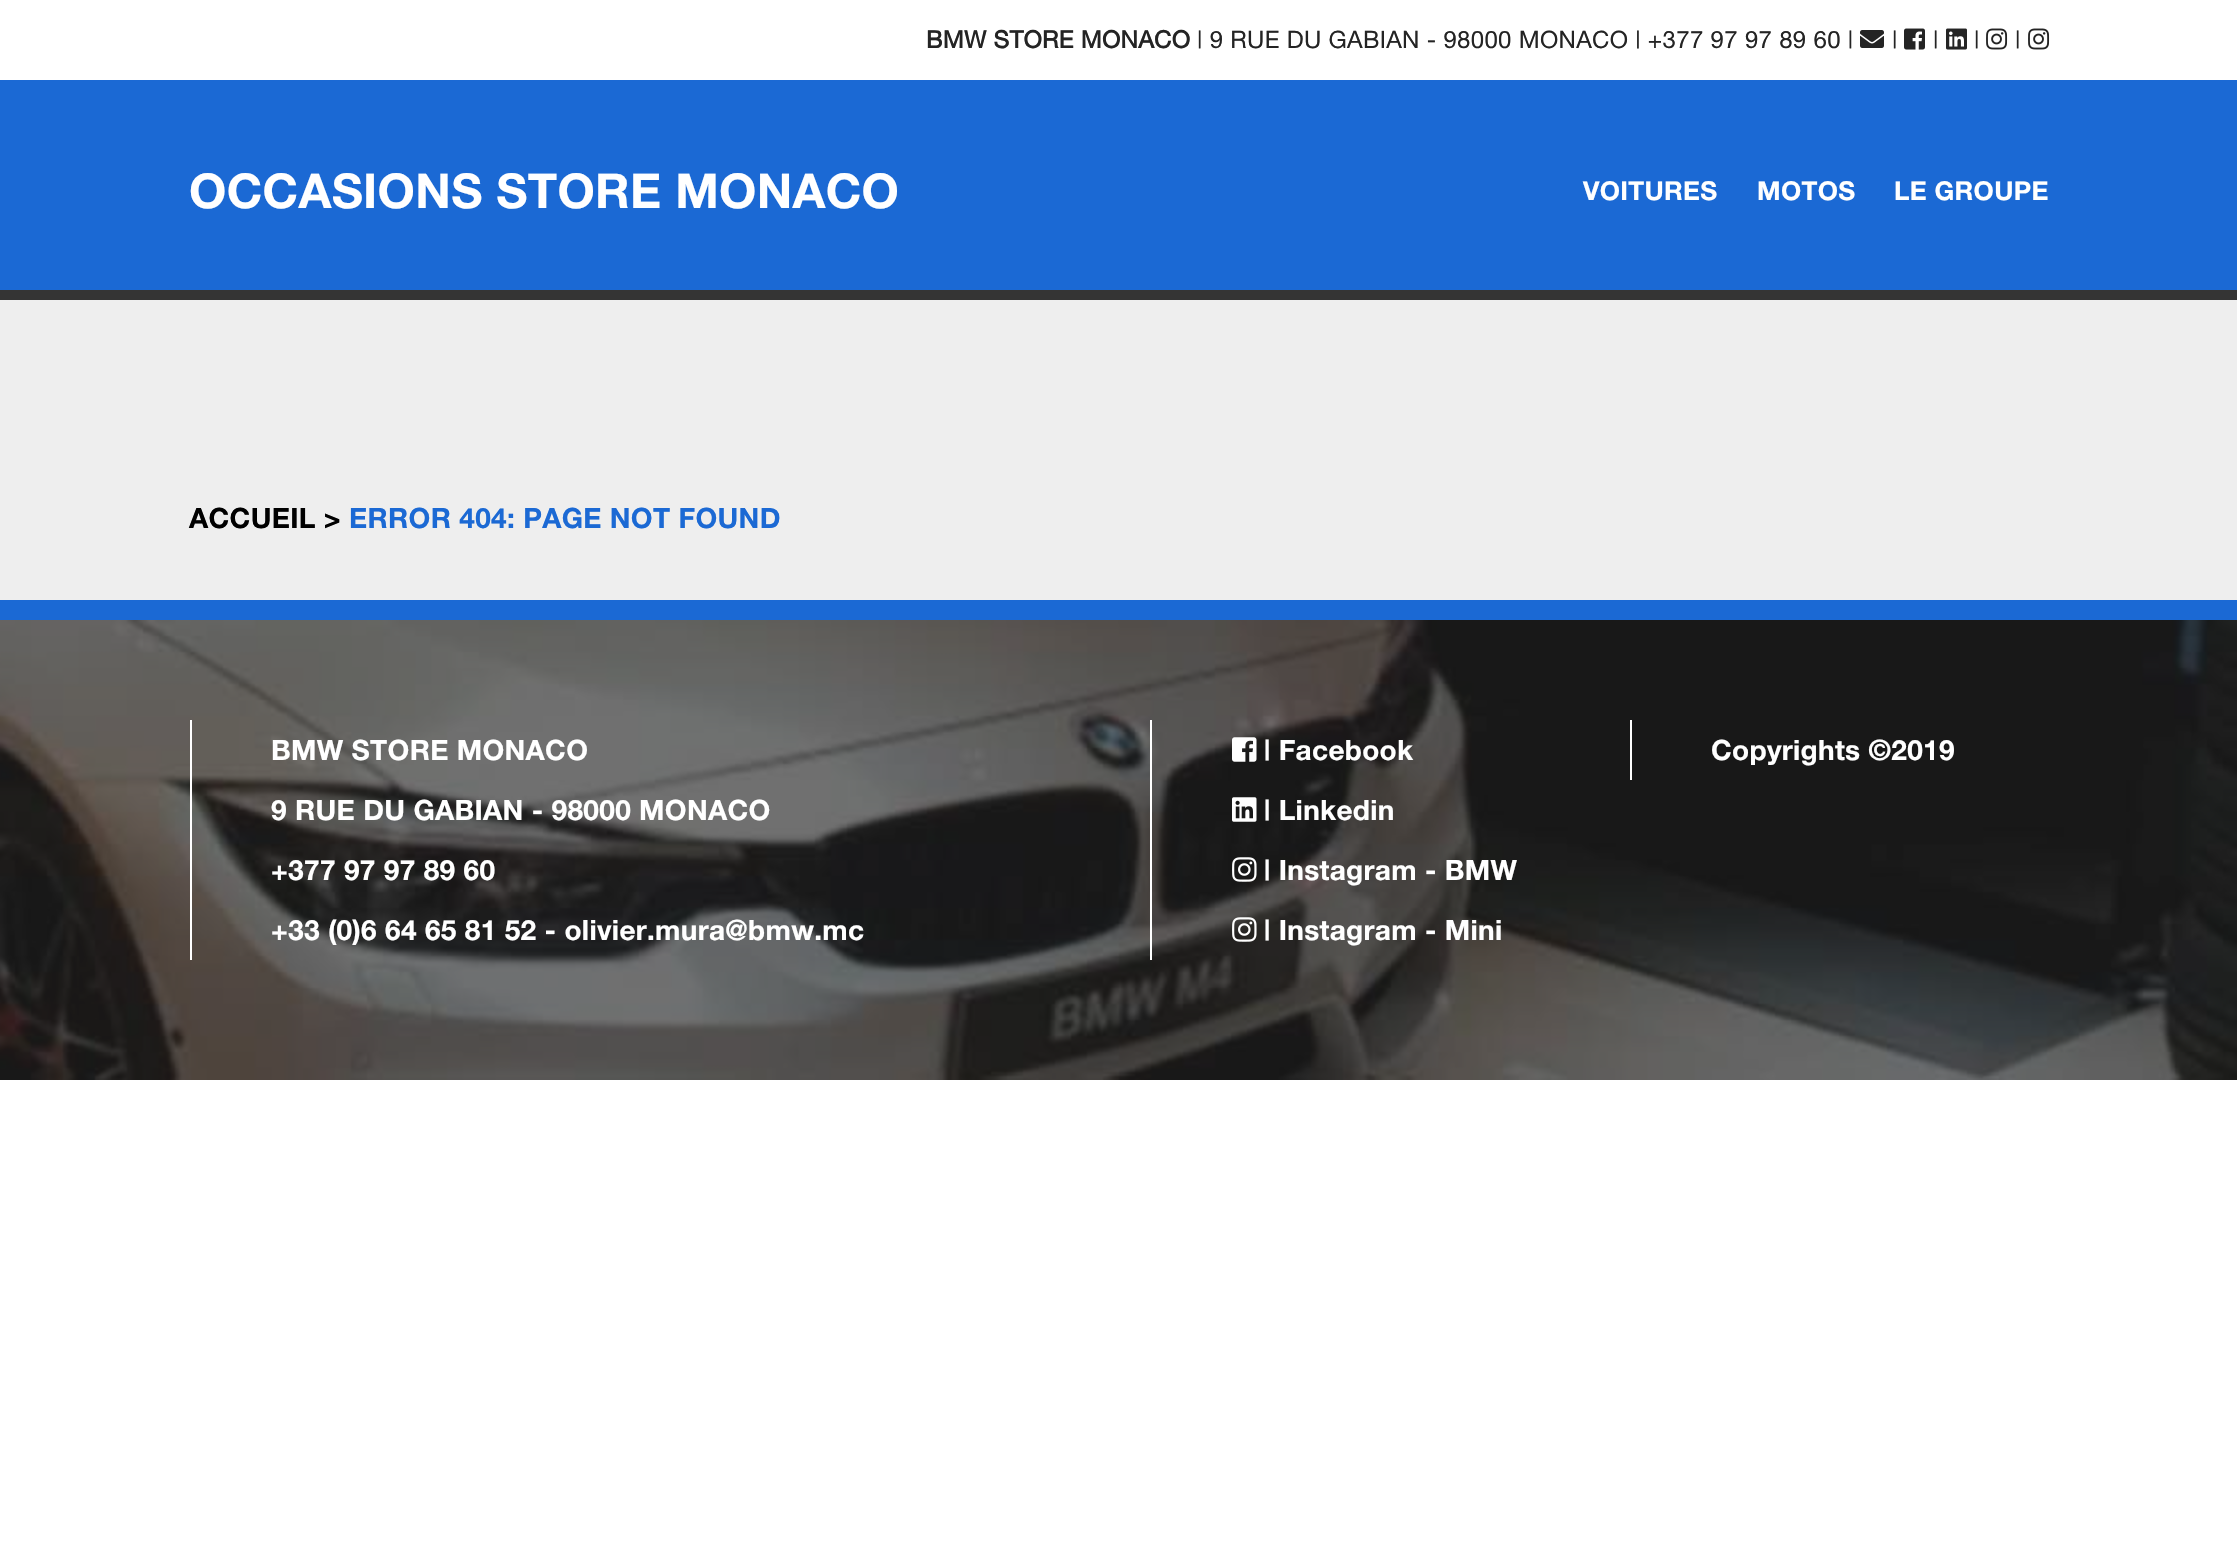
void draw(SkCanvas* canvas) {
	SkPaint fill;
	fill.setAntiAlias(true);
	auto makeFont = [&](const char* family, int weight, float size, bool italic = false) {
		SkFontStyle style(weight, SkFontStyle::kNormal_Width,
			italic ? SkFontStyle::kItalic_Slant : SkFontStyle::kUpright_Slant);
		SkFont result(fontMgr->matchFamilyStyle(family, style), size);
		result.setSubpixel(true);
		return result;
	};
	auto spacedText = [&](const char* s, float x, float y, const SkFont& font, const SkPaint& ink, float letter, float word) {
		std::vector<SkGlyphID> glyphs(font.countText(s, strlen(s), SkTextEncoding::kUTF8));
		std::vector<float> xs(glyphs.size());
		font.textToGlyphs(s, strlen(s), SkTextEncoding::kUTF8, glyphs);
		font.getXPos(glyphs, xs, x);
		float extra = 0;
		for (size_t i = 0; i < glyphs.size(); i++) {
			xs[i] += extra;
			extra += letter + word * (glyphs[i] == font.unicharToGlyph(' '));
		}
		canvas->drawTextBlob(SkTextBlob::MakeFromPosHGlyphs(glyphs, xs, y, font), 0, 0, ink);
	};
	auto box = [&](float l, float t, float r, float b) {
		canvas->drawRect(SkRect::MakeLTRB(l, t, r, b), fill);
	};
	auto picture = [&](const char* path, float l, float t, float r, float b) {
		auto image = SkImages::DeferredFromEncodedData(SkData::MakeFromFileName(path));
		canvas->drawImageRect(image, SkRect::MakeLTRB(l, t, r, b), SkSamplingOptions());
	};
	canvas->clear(0xFFFFFFFF);
	picture("image0.png", 1860, 30, 1884, 48);
	picture("image1.png", 1904, 28, 1925, 50);
	picture("image2.png", 1946, 28, 1967, 50);
	picture("image3.png", 1986, 28, 2008, 50);
	picture("image3.png", 2028, 28, 2050, 50);
	fill.setColor(0xFF1B69D4);
	box(0, 600, 2237, 620);
	fill.setColor(0xFFEEEEEE);
	box(0, 300, 2237, 600);
	fill.setColor(0xFF1B69D4);
	box(0, 80, 2237, 290);
	fill.setColor(0xFF343434);
	box(0, 290, 2237, 300);
	picture("image4.png", 0, 620, 2237, 1080);
	fill.setColor(0xFFFFFFFF);
	box(190, 720, 192, 960);
	box(1150, 720, 1152, 960);
	picture("image5.png", 1232, 737, 1257, 762);
	picture("image6.png", 1232, 797, 1257, 822);
	picture("image7.png", 1232, 857, 1257, 882);
	picture("image8.png", 1232, 917, 1257, 942);
	box(1630, 720, 1632, 780);
	auto font1 = makeFont("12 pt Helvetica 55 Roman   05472", 700, 24);
	fill.setColor(0xFF242424);
	spacedText("BMW STORE MONACO", 926, 48, font1, fill, 0.32f, 0);
	auto font2 = makeFont("12 pt Helvetica 55 Roman   05472", 400, 24);
	spacedText("| 9 RUE DU GABIAN - 98000 MONACO | +377 97 97 89 60 |", 1197, 48, font2, fill, 0.32f, 0);
	spacedText("|", 1892, 48, font2, fill, 0.32f, 0);
	spacedText("|", 1933, 48, font2, fill, 0.32f, 0);
	spacedText("|", 1974, 48, font2, fill, 0.32f, 0);
	spacedText("|", 2015, 48, font2, fill, 0.32f, 0);
	auto font3 = makeFont("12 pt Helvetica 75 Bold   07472", 700, 48);
	fill.setColor(0xFFFFFFFF);
	spacedText("OCCASIONS STORE MONACO", 189, 208, font3, fill, 0.32f, 0);
	auto font4 = makeFont("12 pt Helvetica 75 Bold   07472", 700, 26);
	spacedText("VOITURES", 1583, 200, font4, fill, 0.32f, 0);
	spacedText("MOTOS", 1757, 200, font4, fill, 0.32f, 0);
	spacedText("LE GROUPE", 1894, 200, font4, fill, 0.32f, 0);
	auto font5 = makeFont("12 pt Helvetica 75 Bold   07472", 700, 28);
	fill.setColor(0xFF000000);
	spacedText("ACCUEIL >", 189, 528, font5, fill, 0.32f, 0);
	fill.setColor(0xFF1B69D4);
	spacedText("ERROR 404: PAGE NOT FOUND", 349, 528, font5, fill, 0.32f, 0);
	fill.setColor(0xFFFFFFFF);
	spacedText("BMW STORE MONACO", 271, 760, font5, fill, 0.32f, 0);
	spacedText("9 RUE DU GABIAN - 98000 MONACO", 271, 820, font5, fill, 0.32f, 0);
	spacedText("+377 97 97 89 60", 271, 880, font5, fill, 0.32f, 0);
	spacedText("+33 (0)6 64 65 81 52 - olivier.mura@bmw.mc", 271, 940, font5, fill, 0.32f, 0);
	spacedText("| Facebook", 1264, 760, font5, fill, 0.32f, 0);
	spacedText("| Linkedin", 1264, 820, font5, fill, 0.32f, 0);
	spacedText("| Instagram - BMW", 1264, 880, font5, fill, 0.32f, 0);
	spacedText("| Instagram - Mini", 1264, 940, font5, fill, 0.32f, 0);
	spacedText("Copyrights ©2019", 1711, 760, font5, fill, 0.32f, 0);
}
